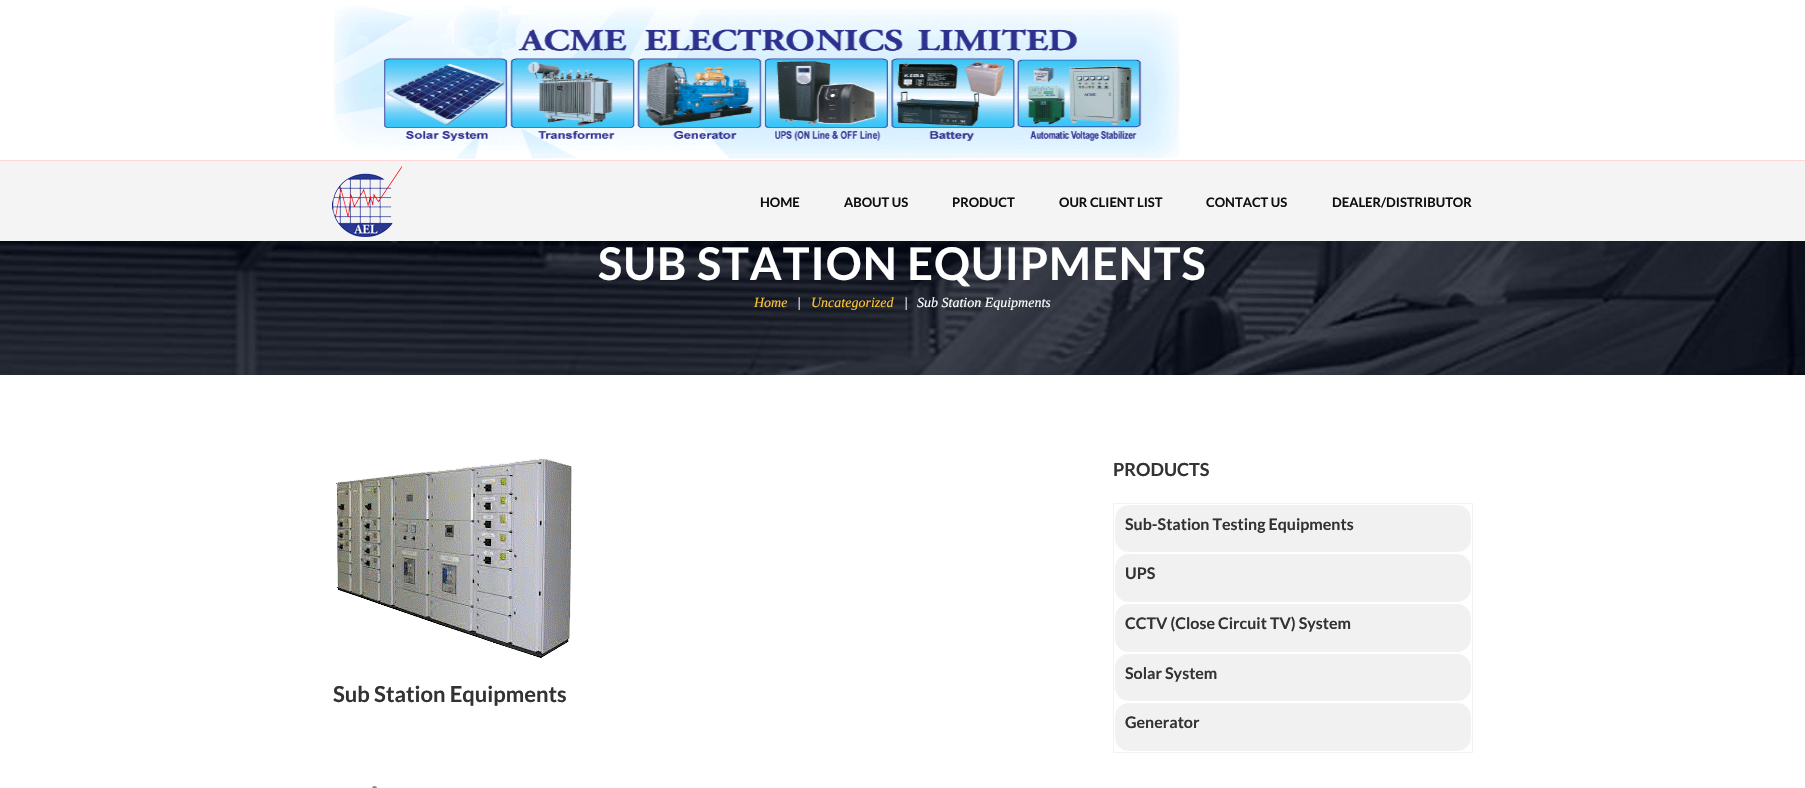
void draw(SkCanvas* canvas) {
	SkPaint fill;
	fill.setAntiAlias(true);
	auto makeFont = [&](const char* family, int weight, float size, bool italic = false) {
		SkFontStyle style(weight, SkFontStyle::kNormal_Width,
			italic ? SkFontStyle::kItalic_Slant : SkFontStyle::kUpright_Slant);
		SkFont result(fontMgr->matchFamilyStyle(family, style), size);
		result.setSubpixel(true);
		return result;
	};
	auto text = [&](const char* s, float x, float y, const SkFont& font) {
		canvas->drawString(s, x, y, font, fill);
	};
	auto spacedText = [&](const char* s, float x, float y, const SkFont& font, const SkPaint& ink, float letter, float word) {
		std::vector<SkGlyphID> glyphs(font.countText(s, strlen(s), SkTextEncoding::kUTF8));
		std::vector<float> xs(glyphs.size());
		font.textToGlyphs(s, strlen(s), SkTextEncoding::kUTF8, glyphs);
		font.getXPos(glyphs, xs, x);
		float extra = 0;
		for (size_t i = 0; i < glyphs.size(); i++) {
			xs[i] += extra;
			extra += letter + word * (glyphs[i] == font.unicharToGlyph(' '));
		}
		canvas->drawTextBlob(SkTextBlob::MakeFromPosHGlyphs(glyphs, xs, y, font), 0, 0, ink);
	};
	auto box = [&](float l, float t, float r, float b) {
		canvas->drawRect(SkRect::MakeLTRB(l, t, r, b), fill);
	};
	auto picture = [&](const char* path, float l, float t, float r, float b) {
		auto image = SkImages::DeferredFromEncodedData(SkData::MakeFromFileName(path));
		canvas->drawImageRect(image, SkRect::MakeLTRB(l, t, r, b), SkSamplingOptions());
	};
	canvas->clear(0xFFFFFFFF);
	fill.setColor(0xFFF4F4F4);
	box(0, 161, 1805, 241);
	fill.setColor(0xFFFFD7D7);
	box(0, 160, 1805, 161);
	picture("image0.png", 333, 4, 1180, 159);
	picture("image1.png", 332, 166, 402, 237);
	picture("image2.png", 0, 241, 1805, 375);
	fill.setColor(0x33000000);
	box(0, 241, 1805, 375);
	picture("image3.png", 336, 458, 572, 658);
	fill.setColor(0xFF888888);
	canvas->drawCircle(374.5f, 788.5f, 2.5f, fill);
	fill.setStyle(SkPaint::kStroke_Style);
	fill.setStrokeWidth(1);
	fill.setColor(0xFFF2F2F2);
	canvas->drawRect(SkRect::MakeLTRB(1113.5f, 503.5f, 1472.5f, 752.5f), fill);
	fill.setStyle(SkPaint::kFill_Style);
	fill.setColor(0xFFF1F1F1);
	canvas->drawRoundRect(SkRect::MakeLTRB(1114.5f, 504.5f, 1471.5f, 552.5f), 14.5f, 14.5f, fill);
	fill.setStyle(SkPaint::kStroke_Style);
	fill.setColor(0xFFFFFFFF);
	canvas->drawRoundRect(SkRect::MakeLTRB(1114.5f, 504.5f, 1471.5f, 552.5f), 14.5f, 14.5f, fill);
	fill.setStyle(SkPaint::kFill_Style);
	fill.setColor(0xFFF1F1F1);
	canvas->drawRoundRect(SkRect::MakeLTRB(1114.5f, 553.5f, 1471.5f, 602.5f), 14.5f, 14.5f, fill);
	fill.setStyle(SkPaint::kStroke_Style);
	fill.setColor(0xFFFFFFFF);
	canvas->drawRoundRect(SkRect::MakeLTRB(1114.5f, 553.5f, 1471.5f, 602.5f), 14.5f, 14.5f, fill);
	fill.setStyle(SkPaint::kFill_Style);
	fill.setColor(0xFFF1F1F1);
	canvas->drawRoundRect(SkRect::MakeLTRB(1114.5f, 603.5f, 1471.5f, 652.5f), 14.5f, 14.5f, fill);
	fill.setStyle(SkPaint::kStroke_Style);
	fill.setColor(0xFFFFFFFF);
	canvas->drawRoundRect(SkRect::MakeLTRB(1114.5f, 603.5f, 1471.5f, 652.5f), 14.5f, 14.5f, fill);
	fill.setStyle(SkPaint::kFill_Style);
	fill.setColor(0xFFF1F1F1);
	canvas->drawRoundRect(SkRect::MakeLTRB(1114.5f, 653.5f, 1471.5f, 701.5f), 14.5f, 14.5f, fill);
	fill.setStyle(SkPaint::kStroke_Style);
	fill.setColor(0xFFFFFFFF);
	canvas->drawRoundRect(SkRect::MakeLTRB(1114.5f, 653.5f, 1471.5f, 701.5f), 14.5f, 14.5f, fill);
	fill.setStyle(SkPaint::kFill_Style);
	fill.setColor(0xFFF1F1F1);
	canvas->drawRoundRect(SkRect::MakeLTRB(1114.5f, 702.5f, 1471.5f, 751.5f), 14.5f, 14.5f, fill);
	fill.setStyle(SkPaint::kStroke_Style);
	fill.setColor(0xFFFFFFFF);
	canvas->drawRoundRect(SkRect::MakeLTRB(1114.5f, 702.5f, 1471.5f, 751.5f), 14.5f, 14.5f, fill);
	auto font1 = makeFont("Lato", 700, 13);
	fill.setStyle(SkPaint::kFill_Style);
	fill.setColor(0xFF0F0F0F);
	text("HOME", 760, 207, font1);
	text("ABOUT US", 844, 207, font1);
	text("PRODUCT", 952, 207, font1);
	text("OUR CLIENT LIST", 1059, 207, font1);
	text("CONTACT US", 1206, 207, font1);
	text("DEALER/DISTRIBUTOR", 1332, 207, font1);
	auto font2 = makeFont("Lato", 700, 45);
	fill.setColor(0xFFFFFFFF);
	spacedText("SUB STATION EQUIPMENTS", 598, 280, font2, fill, 1, 0);
	auto font3 = makeFont("Liberation Serif", 400, 14, true);
	fill.setColor(0xFFFFC434);
	text("Home", 754, 307, font3);
	fill.setColor(0xFFFFFFFF);
	text("|", 797, 307, font3);
	fill.setColor(0xFFFFC434);
	text("Uncategorized", 811, 307, font3);
	fill.setColor(0xFFFFFFFF);
	text("|", 904, 307, font3);
	text("Sub Station Equipments", 917, 307, font3);
	auto font4 = makeFont("Lato", 700, 22);
	fill.setColor(0xFF333333);
	text("Sub Station Equipments", 333, 702, font4);
	auto font5 = makeFont("Lato", 700, 18);
	text("PRODUCTS", 1113, 476, font5);
	auto font6 = makeFont("Lato", 700, 16);
	text("Sub-Station Testing Equipments", 1125, 530, font6);
	text("UPS", 1125, 579, font6);
	text("CCTV (Close Circuit TV) System", 1125, 629, font6);
	text("Solar System", 1125, 679, font6);
	text("Generator", 1125, 728, font6);
}
